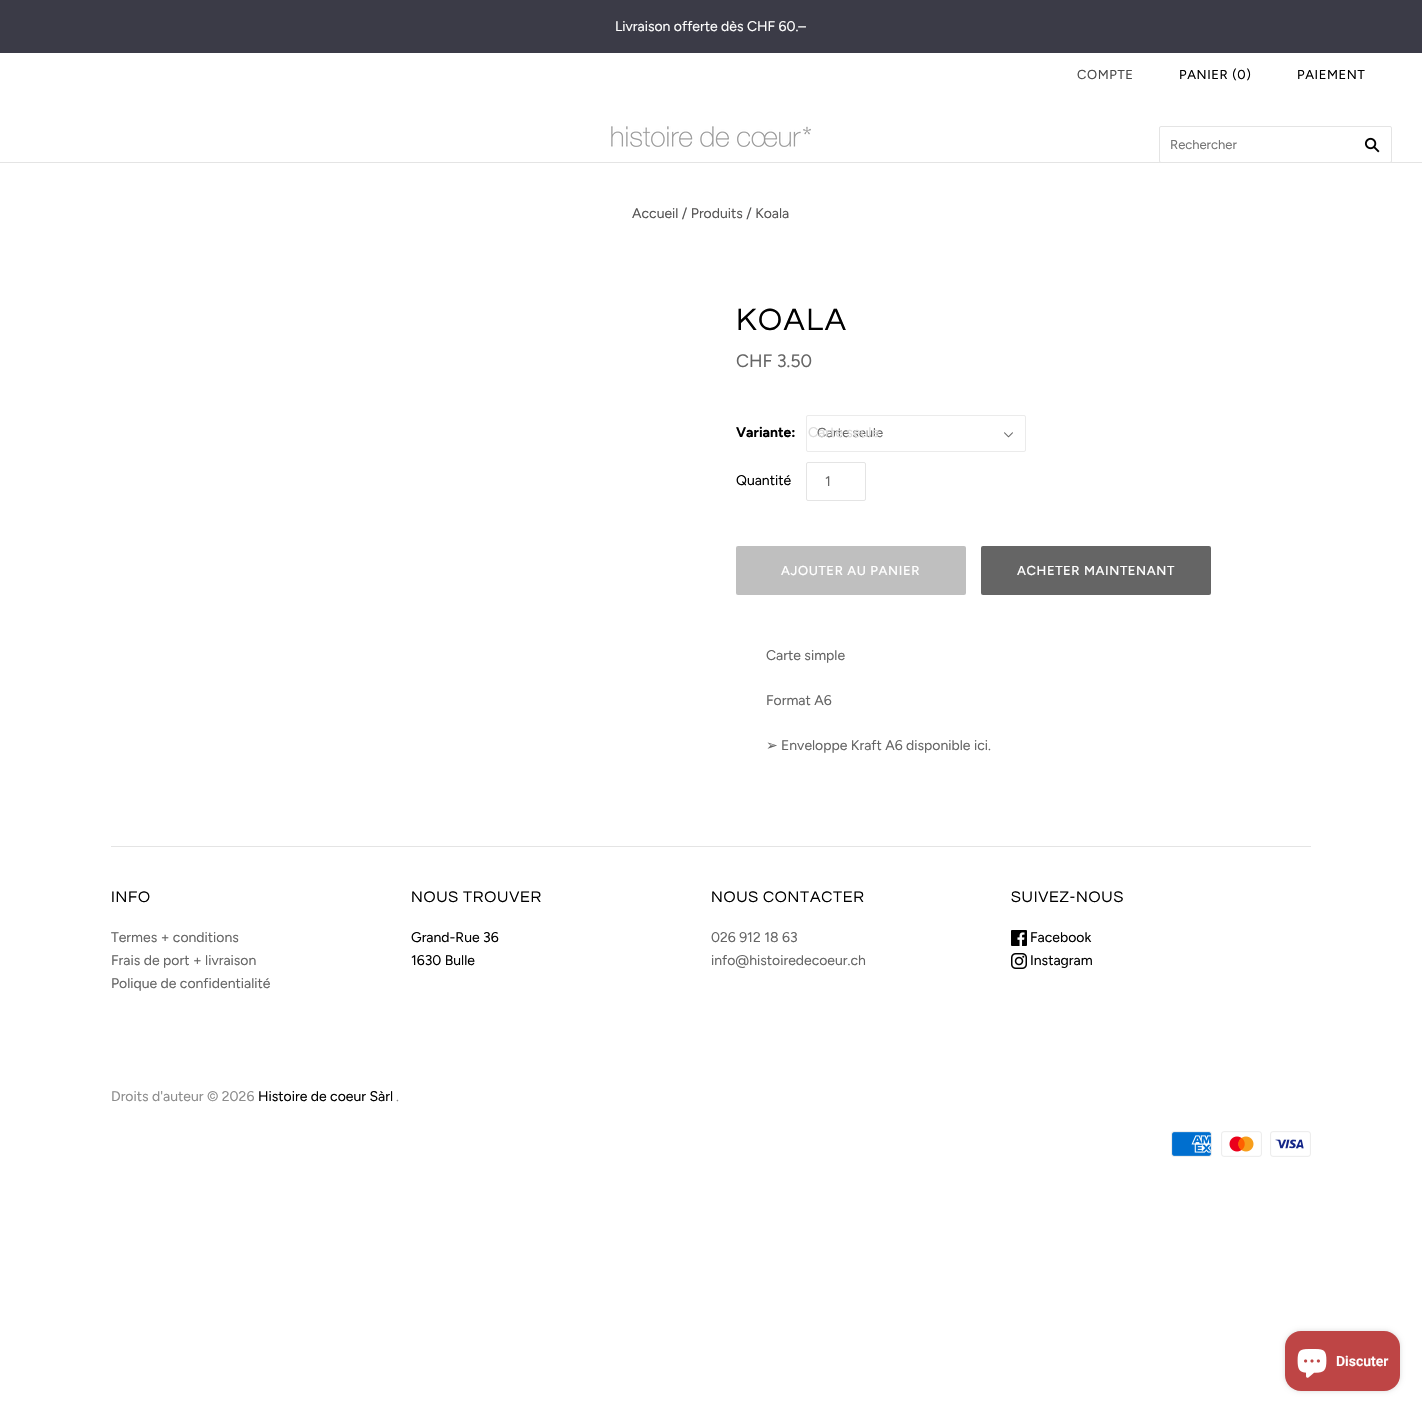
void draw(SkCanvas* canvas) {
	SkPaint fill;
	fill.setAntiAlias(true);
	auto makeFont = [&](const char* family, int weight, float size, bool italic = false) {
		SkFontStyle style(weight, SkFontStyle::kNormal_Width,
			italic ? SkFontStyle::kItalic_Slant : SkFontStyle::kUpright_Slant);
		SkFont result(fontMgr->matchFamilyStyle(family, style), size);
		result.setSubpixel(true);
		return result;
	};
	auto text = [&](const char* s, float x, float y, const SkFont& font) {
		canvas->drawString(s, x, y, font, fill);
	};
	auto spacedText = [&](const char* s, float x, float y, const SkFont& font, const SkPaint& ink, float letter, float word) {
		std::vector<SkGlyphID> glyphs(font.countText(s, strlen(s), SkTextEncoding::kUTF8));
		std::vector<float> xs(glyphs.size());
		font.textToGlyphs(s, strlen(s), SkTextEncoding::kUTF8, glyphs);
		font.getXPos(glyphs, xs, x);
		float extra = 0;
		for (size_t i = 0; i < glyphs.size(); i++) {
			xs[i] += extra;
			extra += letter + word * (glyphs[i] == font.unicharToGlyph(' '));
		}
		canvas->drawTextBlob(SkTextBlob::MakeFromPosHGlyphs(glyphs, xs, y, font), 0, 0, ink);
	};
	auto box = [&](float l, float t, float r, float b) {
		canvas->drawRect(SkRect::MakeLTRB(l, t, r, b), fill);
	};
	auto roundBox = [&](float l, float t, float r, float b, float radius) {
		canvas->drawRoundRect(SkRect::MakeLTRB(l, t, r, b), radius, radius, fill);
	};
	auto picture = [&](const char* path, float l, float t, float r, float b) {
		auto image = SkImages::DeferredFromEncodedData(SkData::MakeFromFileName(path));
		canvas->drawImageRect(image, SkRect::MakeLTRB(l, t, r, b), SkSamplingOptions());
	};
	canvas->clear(0xFFFFFFFF);
	fill.setColor(0xFF3B3B47);
	box(0, 0, 1422, 53);
	fill.setColor(0xFFE4E4E4);
	box(0, 162, 1422, 163);
	picture("image0.png", 611, 126, 811, 147);
	fill.setColor(0xFFFFFFFF);
	canvas->drawRoundRect(SkRect::MakeLTRB(1159.5f, 126.5f, 1391.5f, 162.5f), 1.5f, 1.5f, fill);
	fill.setStyle(SkPaint::kStroke_Style);
	fill.setStrokeWidth(1);
	fill.setColor(0xFFE4E4E4);
	canvas->drawRoundRect(SkRect::MakeLTRB(1159.5f, 126.5f, 1391.5f, 162.5f), 1.5f, 1.5f, fill);
	picture("image1.png", 1364, 137, 1380, 153);
	fill.setColor(0xFFEBEBEB);
	canvas->drawRoundRect(SkRect::MakeLTRB(806.5f, 415.5f, 1025.5f, 451.5f), 1.5f, 1.5f, fill);
	picture("image2.png", 1004, 432, 1013, 438);
	fill.setColor(0xFFE4E4E4);
	canvas->drawRoundRect(SkRect::MakeLTRB(806.5f, 462.5f, 865.5f, 500.5f), 1.5f, 1.5f, fill);
	fill.setStyle(SkPaint::kFill_Style);
	fill.setColor(0xFFBFBFBF);
	roundBox(736, 546, 966, 595, 2);
	fill.setColor(0xFF656565);
	roundBox(981, 546, 1211, 595, 2);
	fill.setColor(0xFFE4E4E4);
	box(111, 846, 1311, 847);
	picture("image3.png", 1011, 930, 1027, 946);
	picture("image4.png", 1011, 953, 1027, 969);
	picture("image5.png", 1171, 1131, 1212, 1157);
	picture("image6.png", 1221, 1131, 1262, 1157);
	picture("image7.png", 1270, 1131, 1311, 1157);
	fill.setColor(0x26000000);
	fill.setMaskFilter(SkMaskFilter::MakeBlur(kNormal_SkBlurStyle, 2.5f));
	canvas->drawRoundRect(SkRect::MakeLTRB(1285, 1331, 1400, 1391), 16, 16, fill);
	fill.setMaskFilter(nullptr);
	fill.setColor(0xFFBE4545);
	roundBox(1285, 1331, 1400, 1391, 16);
	picture("image8.png", 1297, 1349, 1327, 1378);
	auto font1 = makeFont("Figtree", 400, 14);
	fill.setColor(0xFFFFFFFF);
	text("Livraison offerte dès CHF 60.–", 615, 31, font1);
	auto font2 = makeFont("Figtree", 400, 13);
	fill.setColor(0xFF494949);
	spacedText("COMPTE", 1077, 79, font2, fill, 0.6f, 0);
	fill.setColor(0xFF000000);
	spacedText("PANIER (0)", 1179, 79, font2, fill, 0.6f, 0);
	spacedText("PAIEMENT", 1297, 79, font2, fill, 0.6f, 0);
	fill.setColor(0xFF757575);
	text("Rechercher", 1170, 149, font2);
	fill.setColor(0xFF565555);
	text("Accueil / Produits / Koala", 632, 218, font1);
	auto font3 = makeFont("Questrial", 400, 32);
	fill.setColor(0xFF000000);
	spacedText("KOALA", 736, 330, font3, fill, 1.5f, 0);
	auto font4 = makeFont("Figtree", 400, 18);
	fill.setColor(0xFF656565);
	text("CHF 3.50", 736, 367, font4);
	auto font5 = makeFont("Figtree", 700, 14);
	fill.setColor(0xFF000000);
	text("Variante:", 736, 437, font5);
	fill.setColor(0xFF656565);
	text("Carte seule", 817, 437, font2);
	fill.setColor(0xFFDCDCDC);
	text("Carte seule", 808, 437, font1);
	fill.setColor(0xFF000000);
	text("Quantité", 736, 485, font1);
	fill.setColor(0xFF656565);
	text("1", 825, 486, font1);
	auto font6 = makeFont("Figtree", 500, 13);
	fill.setColor(0xFFFFFFFF);
	spacedText("AJOUTER AU PANIER", 781, 575, font6, fill, 0.6f, 0);
	spacedText("ACHETER MAINTENANT", 1017, 575, font6, fill, 0.6f, 0);
	fill.setColor(0xFF656565);
	text("Carte simple", 766, 660, font1);
	text("Format A6", 766, 705, font1);
	auto font7 = makeFont("DejaVu Sans", 400, 14);
	text("➢", 766, 750, font7);
	text("Enveloppe Kraft A6 disponible ici.", 781, 750, font1);
	auto font8 = makeFont("Questrial", 400, 16);
	fill.setColor(0xFF000000);
	spacedText("INFO", 111, 902, font8, fill, 0.75f, 0);
	fill.setColor(0xFF656565);
	text("Termes + conditions", 111, 942, font1);
	text("Frais de port + livraison", 111, 965, font1);
	text("Polique de confidentialité", 111, 988, font1);
	fill.setColor(0xFF000000);
	spacedText("NOUS TROUVER", 411, 902, font8, fill, 0.75f, 0);
	text("Grand-Rue 36", 411, 942, font1);
	text("1630 Bulle", 411, 965, font1);
	spacedText("NOUS CONTACTER", 711, 902, font8, fill, 0.75f, 0);
	fill.setColor(0xFF656565);
	text("026 912 18 63", 711, 942, font1);
	text("info@histoiredecoeur.ch", 711, 965, font1);
	fill.setColor(0xFF000000);
	spacedText("SUIVEZ-NOUS", 1011, 902, font8, fill, 0.75f, 0);
	text("Facebook", 1030, 942, font1);
	text("Instagram", 1030, 965, font1);
	fill.setColor(0xFF8C8C8C);
	text("Droits d'auteur © 2026", 111, 1101, font1);
	fill.setColor(0xFF000000);
	text("Histoire de coeur Sàrl", 258, 1101, font1);
	fill.setColor(0xFF8C8C8C);
	text(".", 396, 1101, font1);
	auto font9 = makeFont("Roboto", 600, 14);
	fill.setColor(0xFFFFFFFF);
	text("Discuter", 1336, 1366, font9);
}
